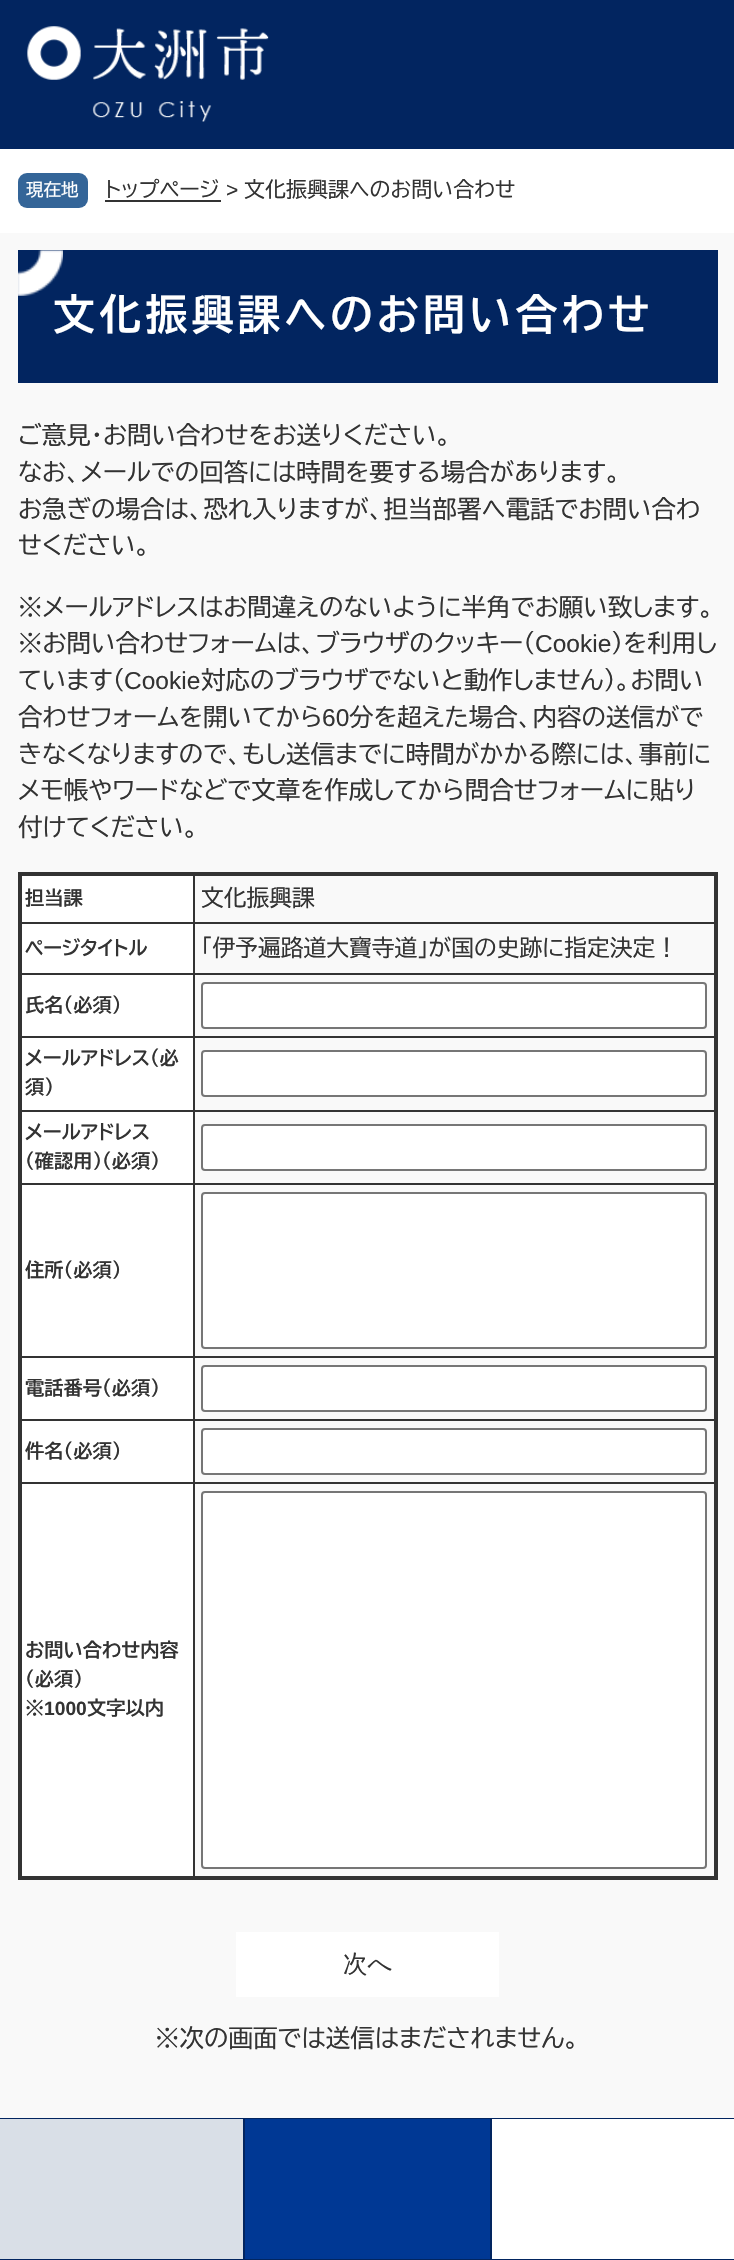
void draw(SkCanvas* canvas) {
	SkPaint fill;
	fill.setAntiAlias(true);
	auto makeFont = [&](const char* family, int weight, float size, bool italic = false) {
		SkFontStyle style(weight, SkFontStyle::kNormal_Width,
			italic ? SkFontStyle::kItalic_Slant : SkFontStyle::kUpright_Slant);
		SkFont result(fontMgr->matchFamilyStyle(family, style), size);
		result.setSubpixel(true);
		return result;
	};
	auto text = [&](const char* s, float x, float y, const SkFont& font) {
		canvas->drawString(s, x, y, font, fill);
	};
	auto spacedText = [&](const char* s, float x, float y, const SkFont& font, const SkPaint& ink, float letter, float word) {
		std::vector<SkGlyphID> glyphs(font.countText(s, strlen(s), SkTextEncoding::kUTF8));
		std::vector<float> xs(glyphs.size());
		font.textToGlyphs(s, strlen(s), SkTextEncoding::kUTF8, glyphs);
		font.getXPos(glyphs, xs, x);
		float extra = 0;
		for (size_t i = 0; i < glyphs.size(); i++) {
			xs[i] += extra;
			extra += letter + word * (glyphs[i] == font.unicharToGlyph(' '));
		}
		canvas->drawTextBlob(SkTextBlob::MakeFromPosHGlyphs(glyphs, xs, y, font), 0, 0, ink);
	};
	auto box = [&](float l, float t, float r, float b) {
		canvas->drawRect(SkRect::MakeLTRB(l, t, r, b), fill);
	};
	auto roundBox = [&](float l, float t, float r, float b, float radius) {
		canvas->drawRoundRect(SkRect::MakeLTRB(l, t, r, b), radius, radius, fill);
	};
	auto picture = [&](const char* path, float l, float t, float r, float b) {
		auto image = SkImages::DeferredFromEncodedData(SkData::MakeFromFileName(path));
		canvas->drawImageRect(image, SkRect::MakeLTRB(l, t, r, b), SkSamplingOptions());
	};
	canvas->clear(0xFFF9F9F9);
	fill.setColor(0xFF022560);
	box(0, 0, 734, 149);
	picture("image0.png", 27, 26, 269, 122);
	box(0, 2118, 734, 2260);
	fill.setColor(0xFFD9DFE7);
	box(0, 2119, 243, 2259);
	fill.setColor(0xFF003894);
	box(245, 2119, 490, 2259);
	fill.setColor(0xFFFFFFFF);
	box(492, 2119, 734, 2259);
	box(0, 149, 734, 233);
	fill.setColor(0xFF346598);
	roundBox(18, 173, 88, 208, 9);
	fill.setColor(0xFF333333);
	box(105, 200, 221, 202);
	fill.setColor(0xFF022560);
	box(18, 250, 718, 383);
	picture("image1.png", 18, 250, 63, 296);
	fill.setColor(0xFF333333);
	box(193, 922, 718, 924);
	box(193, 973, 718, 975);
	box(193, 1036, 718, 1038);
	box(193, 1110, 718, 1112);
	box(193, 1183, 718, 1185);
	box(193, 1356, 718, 1358);
	box(193, 1419, 718, 1421);
	box(193, 1482, 718, 1484);
	box(193, 1482, 195, 1878);
	box(19, 1482, 194, 1484);
	box(193, 1419, 195, 1484);
	box(19, 1419, 194, 1421);
	box(193, 1356, 195, 1421);
	box(19, 1356, 194, 1358);
	box(193, 1183, 195, 1358);
	box(19, 1183, 194, 1185);
	box(193, 1110, 195, 1185);
	box(19, 1110, 194, 1112);
	box(193, 1036, 195, 1111);
	box(19, 1036, 194, 1038);
	box(193, 973, 195, 1038);
	box(19, 973, 194, 975);
	box(193, 922, 195, 975);
	box(19, 922, 194, 924);
	box(193, 872, 195, 924);
	box(18, 872, 718, 876);
	box(714, 872, 718, 1880);
	box(18, 1876, 718, 1880);
	box(18, 872, 22, 1880);
	fill.setColor(0xFFFFFFFF);
	box(22, 876, 193, 922);
	box(22, 924, 193, 973);
	box(22, 975, 193, 1036);
	canvas->drawRoundRect(SkRect::MakeLTRB(202, 983, 706, 1028), 3, 3, fill);
	fill.setStyle(SkPaint::kStroke_Style);
	fill.setStrokeWidth(2);
	fill.setColor(0xFF767676);
	canvas->drawRoundRect(SkRect::MakeLTRB(202, 983, 706, 1028), 3, 3, fill);
	fill.setStyle(SkPaint::kFill_Style);
	fill.setColor(0xFFFFFFFF);
	box(22, 1038, 193, 1110);
	canvas->drawRoundRect(SkRect::MakeLTRB(202, 1051, 706, 1096), 3, 3, fill);
	fill.setStyle(SkPaint::kStroke_Style);
	fill.setColor(0xFF767676);
	canvas->drawRoundRect(SkRect::MakeLTRB(202, 1051, 706, 1096), 3, 3, fill);
	fill.setStyle(SkPaint::kFill_Style);
	fill.setColor(0xFFFFFFFF);
	box(22, 1112, 193, 1183);
	canvas->drawRoundRect(SkRect::MakeLTRB(202, 1125, 706, 1170), 3, 3, fill);
	fill.setStyle(SkPaint::kStroke_Style);
	fill.setColor(0xFF767676);
	canvas->drawRoundRect(SkRect::MakeLTRB(202, 1125, 706, 1170), 3, 3, fill);
	fill.setStyle(SkPaint::kFill_Style);
	fill.setColor(0xFFFFFFFF);
	box(22, 1185, 193, 1356);
	canvas->drawRoundRect(SkRect::MakeLTRB(202, 1193, 706, 1348), 3, 3, fill);
	fill.setStyle(SkPaint::kStroke_Style);
	fill.setColor(0xFF767676);
	canvas->drawRoundRect(SkRect::MakeLTRB(202, 1193, 706, 1348), 3, 3, fill);
	fill.setStyle(SkPaint::kFill_Style);
	fill.setColor(0xFFFFFFFF);
	box(22, 1358, 193, 1419);
	canvas->drawRoundRect(SkRect::MakeLTRB(202, 1366, 706, 1411), 3, 3, fill);
	fill.setStyle(SkPaint::kStroke_Style);
	fill.setColor(0xFF767676);
	canvas->drawRoundRect(SkRect::MakeLTRB(202, 1366, 706, 1411), 3, 3, fill);
	fill.setStyle(SkPaint::kFill_Style);
	fill.setColor(0xFFFFFFFF);
	box(22, 1421, 193, 1482);
	canvas->drawRoundRect(SkRect::MakeLTRB(202, 1429, 706, 1474), 3, 3, fill);
	fill.setStyle(SkPaint::kStroke_Style);
	fill.setColor(0xFF767676);
	canvas->drawRoundRect(SkRect::MakeLTRB(202, 1429, 706, 1474), 3, 3, fill);
	fill.setStyle(SkPaint::kFill_Style);
	fill.setColor(0xFFFFFFFF);
	box(22, 1484, 193, 1876);
	canvas->drawRoundRect(SkRect::MakeLTRB(202, 1492, 706, 1868), 3, 3, fill);
	fill.setStyle(SkPaint::kStroke_Style);
	fill.setColor(0xFF767676);
	canvas->drawRoundRect(SkRect::MakeLTRB(202, 1492, 706, 1868), 3, 3, fill);
	fill.setStyle(SkPaint::kFill_Style);
	fill.setColor(0xFFFFFFFF);
	box(236, 1932, 499, 1997);
	auto font1 = makeFont("BIZ UDPGothic", 400, 17.5f);
	text("現在地", 26, 196, font1);
	auto font2 = makeFont("BIZ UDPGothic", 400, 21);
	fill.setColor(0xFF333333);
	text("トップページ", 105, 197, font2);
	auto font3 = makeFont("Liberation Sans", 400, 21);
	text(">", 226, 197, font3);
	text("文化振興課へのお問い合わせ", 244, 197, font2);
	auto font4 = makeFont("BIZ UDPGothic", 700, 42);
	fill.setColor(0xFFFFFFFF);
	spacedText("文化振興課へのお問い合わせ", 53, 330, font4, fill, 4.25f, 0);
	auto font5 = makeFont("BIZ UDPGothic", 400, 24.5f);
	fill.setColor(0xFF333333);
	text("ご意見・お問い合わせをお送りください。", 18, 444, font5);
	text("なお、メールでの回答には時間を要する場合があります。", 18, 481, font5);
	text("お急ぎの場合は、恐れ入りますが、担当部署へ電話でお問い合わ", 18, 518, font5);
	text("せください。", 18, 554, font5);
	text("※メールアドレスはお間違えのないように半角でお願い致します。", 18, 616, font5);
	text("※お問い合わせフォームは、ブラウザのクッキー（", 18, 652, font5);
	auto font6 = makeFont("Liberation Sans", 400, 24.5f);
	text("Cookie", 535, 652, font6);
	text("）を利用し", 611, 652, font5);
	text("ています（", 18, 689, font5);
	text("Cookie", 124, 689, font6);
	text("対応のブラウザでないと動作しません）。お問い", 201, 689, font5);
	text("合わせフォームを開いてから", 18, 726, font5);
	text("60", 322, 726, font6);
	text("分を超えた場合、内容の送信がで", 349, 726, font5);
	text("きなくなりますので、もし送信までに時間がかかる際には、事前に", 18, 763, font5);
	text("メモ帳やワードなどで文章を作成してから問合せフォームに貼り", 18, 799, font5);
	text("付けてください。", 18, 836, font5);
	auto font7 = makeFont("BIZ UDPGothic", 700, 19.25f);
	text("担当課", 25, 905, font7);
	auto font8 = makeFont("BIZ UDPGothic", 400, 22.75f);
	text("文化振興課", 201, 906, font8);
	text("ページタイトル", 25, 955, font7);
	text("「伊予遍路道大寶寺道」が国の史跡に指定決定！", 201, 956, font8);
	text("氏名（必須）", 25, 1012, font7);
	text("メールアドレス（必", 25, 1065, font7);
	text("須）", 25, 1094, font7);
	text("メールアドレス", 25, 1139, font7);
	text("（確認用）（必須）", 25, 1168, font7);
	text("住所（必須）", 25, 1277, font7);
	text("電話番号（必須）", 25, 1395, font7);
	text("件名（必須）", 25, 1458, font7);
	text("お問い合わせ内容", 25, 1657, font7);
	text("（必須）", 25, 1686, font7);
	text("※", 25, 1715, font7);
	auto font9 = makeFont("Liberation Sans", 700, 19.25f);
	text("1000", 44, 1715, font9);
	text("文字以内", 87, 1715, font7);
	auto font10 = makeFont("WenQuanYi Zen Hei", 500, 24.5f);
	text("次へ", 343, 1972, font10);
	text("※次の画面では送信はまだされません。", 155, 2047, font5);
}
